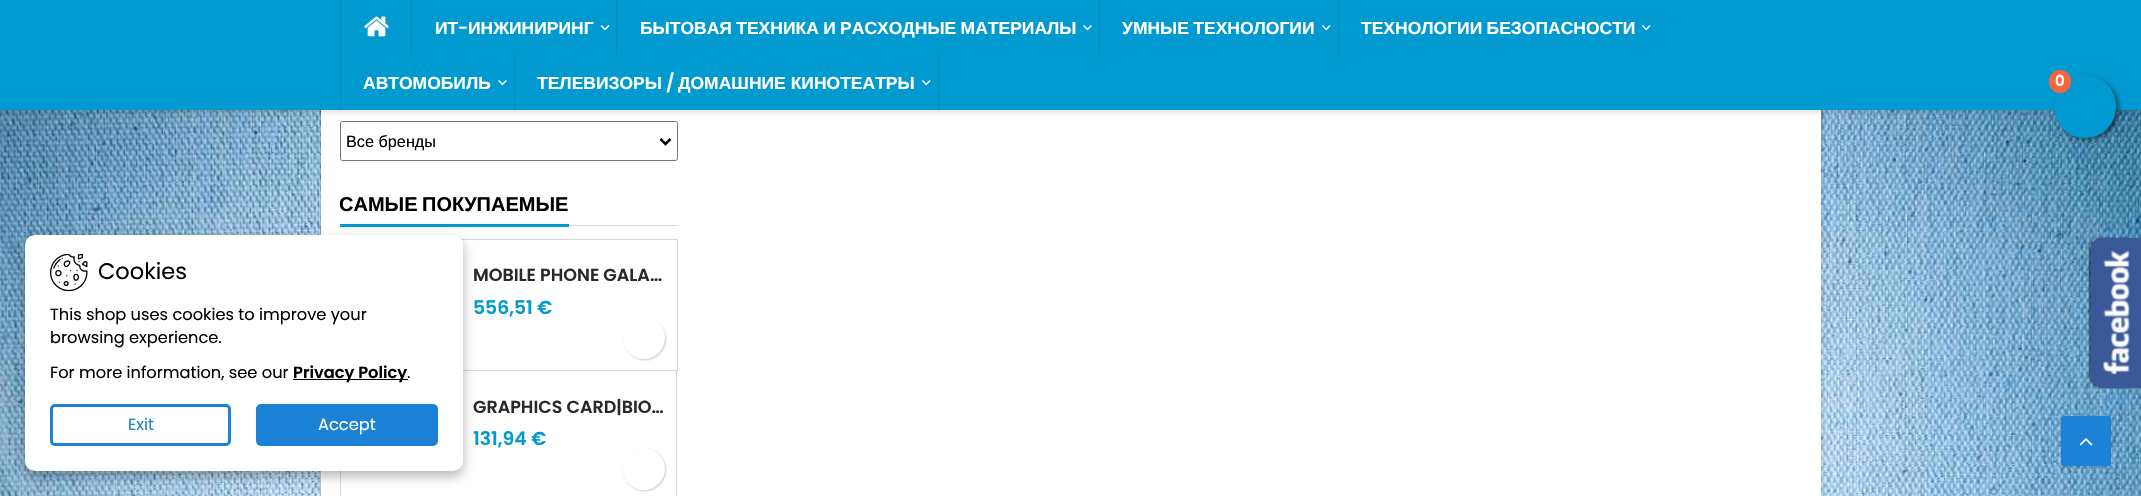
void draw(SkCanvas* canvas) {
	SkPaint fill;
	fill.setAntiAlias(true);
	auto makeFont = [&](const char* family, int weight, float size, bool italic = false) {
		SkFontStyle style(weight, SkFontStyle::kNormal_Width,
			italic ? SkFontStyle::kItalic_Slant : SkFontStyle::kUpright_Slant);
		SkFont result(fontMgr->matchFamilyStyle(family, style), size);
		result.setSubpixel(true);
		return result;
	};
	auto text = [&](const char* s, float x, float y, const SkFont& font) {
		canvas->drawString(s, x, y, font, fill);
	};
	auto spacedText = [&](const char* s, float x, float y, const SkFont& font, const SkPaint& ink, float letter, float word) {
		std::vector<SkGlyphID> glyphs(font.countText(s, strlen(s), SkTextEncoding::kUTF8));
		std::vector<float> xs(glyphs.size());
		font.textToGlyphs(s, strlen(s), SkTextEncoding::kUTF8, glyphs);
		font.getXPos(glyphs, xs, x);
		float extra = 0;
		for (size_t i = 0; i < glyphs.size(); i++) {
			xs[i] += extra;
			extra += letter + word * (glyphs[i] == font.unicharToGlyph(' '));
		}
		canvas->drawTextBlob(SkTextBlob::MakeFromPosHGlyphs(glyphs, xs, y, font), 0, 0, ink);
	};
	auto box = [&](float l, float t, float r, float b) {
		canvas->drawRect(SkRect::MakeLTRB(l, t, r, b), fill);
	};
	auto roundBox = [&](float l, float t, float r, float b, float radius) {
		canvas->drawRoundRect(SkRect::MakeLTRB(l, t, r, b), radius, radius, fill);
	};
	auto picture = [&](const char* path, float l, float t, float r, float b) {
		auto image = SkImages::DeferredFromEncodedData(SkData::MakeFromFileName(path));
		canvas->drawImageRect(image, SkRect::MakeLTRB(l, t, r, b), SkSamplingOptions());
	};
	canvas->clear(0xFFFFFFFF);
	picture("image0.png", 0, 110, 2141, 496);
	fill.setColor(0x33000000);
	fill.setMaskFilter(SkMaskFilter::MakeBlur(kNormal_SkBlurStyle, 2.5f));
	canvas->drawRect(SkRect::MakeLTRB(321, -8, 1821, 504), fill);
	fill.setMaskFilter(nullptr);
	fill.setColor(0xFFFFFFFF);
	box(321, 110, 1821, 496);
	fill.setStyle(SkPaint::kStroke_Style);
	fill.setStrokeWidth(1);
	fill.setColor(0xFF767676);
	canvas->drawRoundRect(SkRect::MakeLTRB(340.5f, 121.5f, 677.5f, 160.5f), 2, 2, fill);
	fill.setStyle(SkPaint::kFill_Style);
	fill.setColor(0x1A000000);
	fill.setMaskFilter(SkMaskFilter::MakeBlur(kNormal_SkBlurStyle, 2.5f));
	canvas->drawRect(SkRect::MakeLTRB(0, 3, 2141, 113), fill);
	fill.setMaskFilter(nullptr);
	fill.setColor(0xFF009AD0);
	box(0, 0, 2141, 110);
	fill.setColor(0xFF008BBB);
	box(340, 0, 341, 110);
	picture("image1.png", 364, 16, 389, 37);
	box(411, 0, 412, 55);
	picture("image2.png", 600, 25, 610, 31);
	box(616, 0, 617, 55);
	picture("image3.png", 1083, 25, 1092, 31);
	box(1099, 0, 1100, 55);
	picture("image4.png", 1322, 25, 1331, 31);
	box(1338, 0, 1339, 55);
	picture("image4.png", 1642, 25, 1651, 31);
	picture("image3.png", 498, 80, 507, 86);
	box(938, 55, 939, 110);
	box(514, 55, 515, 110);
	picture("image4.png", 922, 80, 931, 86);
	fill.setColor(0x80000000);
	fill.setMaskFilter(SkMaskFilter::MakeBlur(kNormal_SkBlurStyle, 2.5f));
	canvas->drawRoundRect(SkRect::MakeLTRB(2056, 78, 2119, 140), 31, 31, fill);
	fill.setMaskFilter(nullptr);
	fill.setColor(0xFF009AD0);
	roundBox(2054, 75, 2116, 138, 31);
	fill.setColor(0xFFF8653D);
	roundBox(2049, 70, 2071, 93, 11);
	fill.setColor(0xFF009AD0);
	box(340, 224, 569, 227);
	fill.setStyle(SkPaint::kStroke_Style);
	fill.setColor(0xFFD6D4D4);
	canvas->drawRect(SkRect::MakeLTRB(340.5f, 239.5f, 677.5f, 370.5f), fill);
	fill.setStyle(SkPaint::kFill_Style);
	box(340, 471, 341, 496);
	fill.setColor(0x4D000000);
	fill.setMaskFilter(SkMaskFilter::MakeBlur(kNormal_SkBlurStyle, 6));
	canvas->drawRoundRect(SkRect::MakeLTRB(25, 240, 463, 476), 10, 10, fill);
	fill.setMaskFilter(nullptr);
	fill.setColor(0xFFFFFFFF);
	roundBox(25, 235, 463, 471, 10);
	picture("image5.png", 50, 254, 88, 291);
	fill.setColor(0xFF000000);
	box(293, 379, 408, 380);
	fill.setStyle(SkPaint::kStroke_Style);
	fill.setStrokeWidth(3);
	fill.setColor(0xFF1B82D6);
	canvas->drawRoundRect(SkRect::MakeLTRB(51.5f, 405.5f, 229.5f, 444.5f), 3.5f, 3.5f, fill);
	fill.setStyle(SkPaint::kFill_Style);
	canvas->drawRoundRect(SkRect::MakeLTRB(257.5f, 405.5f, 436.5f, 444.5f), 3.5f, 3.5f, fill);
	fill.setStyle(SkPaint::kStroke_Style);
	canvas->drawRoundRect(SkRect::MakeLTRB(257.5f, 405.5f, 436.5f, 444.5f), 3.5f, 3.5f, fill);
	fill.setStyle(SkPaint::kFill_Style);
	fill.setColor(0x1A000000);
	fill.setMaskFilter(SkMaskFilter::MakeBlur(kNormal_SkBlurStyle, 0.5f));
	canvas->drawRoundRect(SkRect::MakeLTRB(2061, 418, 2111, 468), 2.5f, 2.5f, fill);
	fill.setMaskFilter(nullptr);
	fill.setColor(0xFF1B82D6);
	roundBox(2061, 416, 2111, 466, 2.5f);
	picture("image6.png", 2079, 438, 2093, 446);
	fill.setStyle(SkPaint::kStroke_Style);
	fill.setStrokeWidth(2.5f);
	fill.setColor(0xFF000000);
	canvas->drawPath(SkPathBuilder().moveTo(660.5f, 139).lineTo(665.5f, 144).lineTo(670.5f, 139).detach(), fill);
	fill.setStyle(SkPaint::kFill_Style);
	fill.setColor(0xFFD6D4D4);
	box(569, 225, 678, 226);
	fill.setColor(0x33000000);
	fill.setMaskFilter(SkMaskFilter::MakeBlur(kNormal_SkBlurStyle, 1));
	canvas->drawRoundRect(SkRect::MakeLTRB(624, 318, 666, 360), 21, 21, fill);
	fill.setMaskFilter(nullptr);
	fill.setColor(0xFFFFFFFF);
	roundBox(623, 316, 665, 359, 21);
	fill.setColor(0xFFD6D4D4);
	box(676, 371, 677, 496);
	fill.setColor(0x33000000);
	fill.setMaskFilter(SkMaskFilter::MakeBlur(kNormal_SkBlurStyle, 1));
	canvas->drawRoundRect(SkRect::MakeLTRB(624, 449, 666, 491), 21, 21, fill);
	fill.setMaskFilter(nullptr);
	fill.setColor(0xFFFFFFFF);
	canvas->drawCircle(644, 469, 21, fill);
	fill.setColor(0x80000000);
	fill.setMaskFilter(SkMaskFilter::MakeBlur(kNormal_SkBlurStyle, 1));
	canvas->drawRoundRect(SkRect::MakeLTRB(2089, 238, 2139, 388), 13, 13, fill);
	fill.setMaskFilter(nullptr);
	fill.setColor(0xFF3B5998);
	canvas->drawPath(SkPathBuilder().moveTo(2104, 238).lineTo(2141, 238).lineTo(2141, 388).lineTo(2104, 388).cubicTo(2097, 388, 2091, 382, 2091, 375).lineTo(2091, 251).cubicTo(2091, 244, 2097, 238, 2104, 238).close().detach(), fill);
	picture("image7.png", 2103, 250, 2130, 375);
	auto font1 = makeFont("Liberation Sans", 700, 17.5f);
	fill.setColor(0xFFFFFFFF);
	text("ИТ", 435, 34, font1);
	auto font2 = makeFont("Poppins", 600, 17.5f);
	text("-", 458, 34, font2);
	text("ИНЖИНИРИНГ", 468, 34, font1);
	spacedText("БЫТОВАЯ ТЕХНИКА И РАСХОДНЫЕ МАТЕРИАЛЫ", 640, 34, font1, fill, 0, -0.5f);
	spacedText("УМНЫЕ ТЕХНОЛОГИИ", 1122, 34, font1, fill, 0, -0.5f);
	spacedText("ТЕХНОЛОГИИ БЕЗОПАСНОСТИ", 1361, 34, font1, fill, 0, -0.5f);
	text("АВТОМОБИЛЬ", 363, 89, font1);
	text("ТЕЛЕВИЗОРЫ", 537, 89, font1);
	text("/", 666, 89, font2);
	text("ДОМАШНИЕ КИНОТЕАТРЫ", 678, 89, font1);
	auto font3 = makeFont("Poppins", 600, 15);
	text("0", 2055, 86, font3);
	auto font4 = makeFont("Poppins", 400, 22.5f);
	fill.setColor(0xFF000000);
	text("Cookies", 98, 279, font4);
	auto font5 = makeFont("Poppins", 400, 16.25f);
	text("This shop uses cookies to improve your", 50, 320, font5);
	text("browsing experience.", 50, 343, font5);
	text("For more information, see our", 50, 378, font5);
	auto font6 = makeFont("Poppins", 600, 16.25f);
	text("Privacy Policy", 293, 378, font6);
	text(".", 407, 378, font5);
	fill.setColor(0xFF1B82D6);
	text("Exit", 128, 430, font5);
	fill.setColor(0xFFFFFFFF);
	text("Accept", 318, 430, font5);
	auto font7 = makeFont("Liberation Sans", 400, 16.25f);
	fill.setColor(0xFF000000);
	text("Все бренды", 346, 147, font7);
	auto font8 = makeFont("Liberation Sans", 700, 20);
	spacedText("САМЫЕ ПОКУПАЕМЫЕ", 339, 211, font8, fill, 0, -1);
	fill.setColor(0xFF292929);
	text("MOBILE PHONE GALA…", 473, 281, font2);
	auto font9 = makeFont("Poppins", 600, 18.75f);
	fill.setColor(0xFF009AD0);
	text("556,51 €", 473, 314, font9);
	fill.setColor(0xFF292929);
	text("GRAPHICS CARD|BIO…", 473, 413, font2);
	fill.setColor(0xFF009AD0);
	text("131,94 €", 473, 445, font9);
}
